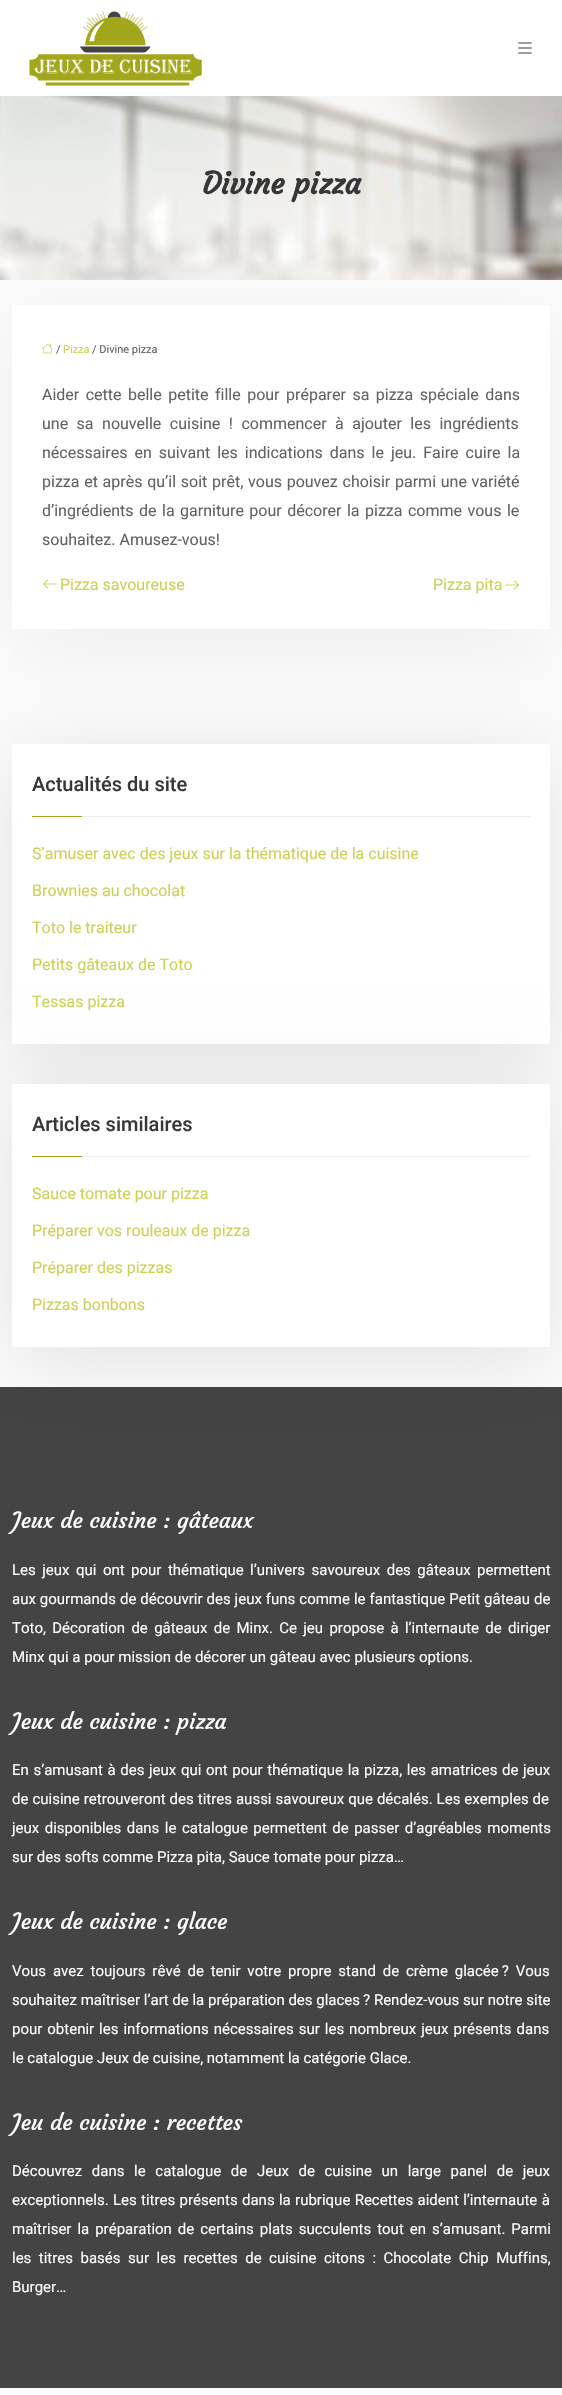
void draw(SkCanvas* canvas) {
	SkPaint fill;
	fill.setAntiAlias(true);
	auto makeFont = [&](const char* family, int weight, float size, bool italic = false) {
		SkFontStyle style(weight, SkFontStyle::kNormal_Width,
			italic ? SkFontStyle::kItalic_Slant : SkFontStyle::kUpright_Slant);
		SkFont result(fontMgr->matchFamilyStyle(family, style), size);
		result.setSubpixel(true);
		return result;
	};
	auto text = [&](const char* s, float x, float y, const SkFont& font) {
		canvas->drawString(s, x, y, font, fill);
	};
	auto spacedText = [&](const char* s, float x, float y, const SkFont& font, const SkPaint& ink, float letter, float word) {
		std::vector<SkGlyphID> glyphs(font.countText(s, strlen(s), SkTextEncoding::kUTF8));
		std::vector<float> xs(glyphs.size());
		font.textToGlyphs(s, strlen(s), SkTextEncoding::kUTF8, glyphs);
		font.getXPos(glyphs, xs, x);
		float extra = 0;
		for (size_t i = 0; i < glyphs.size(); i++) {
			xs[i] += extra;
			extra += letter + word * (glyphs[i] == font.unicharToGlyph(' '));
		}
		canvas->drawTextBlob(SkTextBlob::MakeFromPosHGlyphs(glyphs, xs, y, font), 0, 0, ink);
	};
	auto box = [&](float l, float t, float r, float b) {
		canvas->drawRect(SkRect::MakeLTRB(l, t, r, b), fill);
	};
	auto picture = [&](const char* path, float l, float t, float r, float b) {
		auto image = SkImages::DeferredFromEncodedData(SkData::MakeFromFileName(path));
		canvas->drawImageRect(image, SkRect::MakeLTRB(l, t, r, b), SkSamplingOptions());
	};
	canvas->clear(0xFFFCFCFC);
	fill.setColor(0xFFFFFFFF);
	box(0, 0, 562, 96);
	picture("image0.png", 29, 11, 202, 86);
	picture("image1.png", 518, 42, 532, 54);
	fill.setColor(0x0F000000);
	fill.setMaskFilter(SkMaskFilter::MakeBlur(kNormal_SkBlurStyle, 38));
	canvas->drawRect(SkRect::MakeLTRB(12, 320, 550, 644), fill);
	fill.setMaskFilter(nullptr);
	picture("image2.png", 0, 96, 562, 280);
	fill.setColor(0xFFFFFFFF);
	box(12, 305, 550, 629);
	picture("image3.png", 42, 343, 53, 354);
	picture("image4.png", 43, 579, 57, 589);
	picture("image5.png", 505, 580, 519, 590);
	fill.setColor(0x1A000000);
	fill.setMaskFilter(SkMaskFilter::MakeBlur(kNormal_SkBlurStyle, 38));
	canvas->drawRect(SkRect::MakeLTRB(12, 759, 550, 1059), fill);
	fill.setMaskFilter(nullptr);
	fill.setColor(0xFFFFFFFF);
	box(12, 744, 550, 1044);
	fill.setColor(0xFFA1A61A);
	box(32, 816, 82, 817);
	fill.setColor(0xFFECECEC);
	box(82, 816, 530, 817);
	fill.setColor(0xFF444444);
	box(0, 1387, 562, 2388);
	fill.setColor(0x1A000000);
	fill.setMaskFilter(SkMaskFilter::MakeBlur(kNormal_SkBlurStyle, 38));
	canvas->drawRect(SkRect::MakeLTRB(12, 1099, 550, 1362), fill);
	fill.setMaskFilter(nullptr);
	fill.setColor(0xFFFFFFFF);
	box(12, 1084, 550, 1347);
	fill.setColor(0xFFA1A61A);
	box(32, 1156, 82, 1157);
	fill.setColor(0xFFECECEC);
	box(82, 1156, 530, 1157);
	auto font1 = makeFont("Courgette", 700, 30);
	fill.setColor(0xFF373737);
	text("Divine pizza", 202, 194, font1);
	auto font2 = makeFont("Roboto", 400, 11);
	fill.setColor(0xFF626262);
	text("/", 56, 353, font2);
	fill.setColor(0xFFCDD158);
	text("Pizza", 63, 353, font2);
	fill.setColor(0xFF626262);
	text("/ Divine pizza", 92, 353, font2);
	auto font3 = makeFont("Roboto", 400, 16);
	spacedText("Aider cette belle petite fille pour préparer sa pizza spéciale dans", 42, 400, font3, fill, 0, 2.5f);
	spacedText("une sa nouvelle cuisine ! commencer à ajouter les ingrédients", 42, 429, font3, fill, 0, 4.5f);
	spacedText("nécessaires en suivant les indications dans le jeu. Faire cuire la", 42, 458, font3, fill, 0, 3);
	spacedText("pizza et après qu’il soit prêt, vous pouvez choisir parmi une variété", 42, 487, font3, fill, 0, 0.75f);
	spacedText("d’ingrédients de la garniture pour décorer la pizza comme vous le", 42, 516, font3, fill, 0, 1.5f);
	text("souhaitez. Amusez-vous!", 42, 545, font3);
	fill.setColor(0xFFCDD158);
	text("Pizza savoureuse", 60, 590, font3);
	text("Pizza pita", 433, 590, font3);
	auto font4 = makeFont("Roboto", 500, 20);
	fill.setColor(0xFF373737);
	text("Actualités du site", 32, 791, font4);
	fill.setColor(0xFFCDD158);
	text("S’amuser avec des jeux sur la thématique de la cuisine", 32, 859, font3);
	text("Brownies au chocolat", 32, 896, font3);
	text("Toto le traiteur", 32, 933, font3);
	text("Petits gâteaux de Toto", 32, 970, font3);
	text("Tessas pizza", 32, 1007, font3);
	fill.setColor(0xFF373737);
	text("Articles similaires", 32, 1131, font4);
	fill.setColor(0xFFCDD158);
	text("Sauce tomate pour pizza", 32, 1199, font3);
	text("Préparer vos rouleaux de pizza", 32, 1236, font3);
	text("Préparer des pizzas", 32, 1273, font3);
	text("Pizzas bonbons", 32, 1310, font3);
	auto font5 = makeFont("Courgette", 400, 22);
	fill.setColor(0xFFFFFFFF);
	text("Jeux de cuisine : gâteaux", 12, 1528, font5);
	auto font6 = makeFont("Roboto", 400, 15);
	spacedText("Les jeux qui ont pour thématique l’univers savoureux des gâteaux permettent", 12, 1575, font6, fill, 0, 2.75f);
	spacedText("aux gourmands de découvrir des jeux funs comme le fantastique Petit gâteau de", 12, 1604, font6, fill, 0, 0.25f);
	spacedText("Toto, Décoration de gâteaux de Minx. Ce jeu propose à l’internaute de diriger", 12, 1633, font6, fill, 0, 2.6f);
	text("Minx qui a pour mission de décorer un gâteau avec plusieurs options.", 12, 1662, font6);
	text("Jeux de cuisine : pizza", 12, 1729, font5);
	spacedText("En s’amusant à des jeux qui ont pour thématique la pizza, les amatrices de jeux", 12, 1775, font6, fill, 0, 0.9f);
	spacedText("de cuisine retrouveront des titres aussi savoureux que décalés. Les exemples de", 12, 1804, font6, fill, 0, 0.25f);
	spacedText("jeux disponibles dans le catalogue permettent de passer d’agréables moments", 12, 1833, font6, fill, 0, 1.75f);
	text("sur des softs comme Pizza pita, Sauce tomate pour pizza…", 12, 1862, font6);
	text("Jeux de cuisine : glace", 12, 1929, font5);
	spacedText("Vous avez toujours rêvé de tenir votre propre stand de crème glacée ? Vous", 12, 1976, font6, fill, 0, 3.1f);
	text("souhaitez maîtriser l’art de la préparation des glaces ? Rendez-vous sur notre site", 12, 2005, font6);
	spacedText("pour obtenir les informations nécessaires sur les nombreux jeux présents dans", 12, 2034, font6, fill, 0, 1.25f);
	text("le catalogue Jeux de cuisine, notamment la catégorie Glace.", 12, 2063, font6);
	text("Jeu de cuisine : recettes", 12, 2130, font5);
	spacedText("Découvrez dans le catalogue de Jeux de cuisine un large panel de jeux", 12, 2176, font6, fill, 0, 5.9f);
	spacedText("exceptionnels. Les titres présents dans la rubrique Recettes aident l’internaute à", 12, 2205, font6, fill, 0, 0.6f);
	spacedText("maîtriser la préparation de certains plats succulents tout en s’amusant. Parmi", 12, 2234, font6, fill, 0, 2.25f);
	spacedText("les titres basés sur les recettes de cuisine citons : Chocolate Chip Muffins,", 12, 2263, font6, fill, 0, 3.75f);
	text("Burger…", 12, 2292, font6);
}
